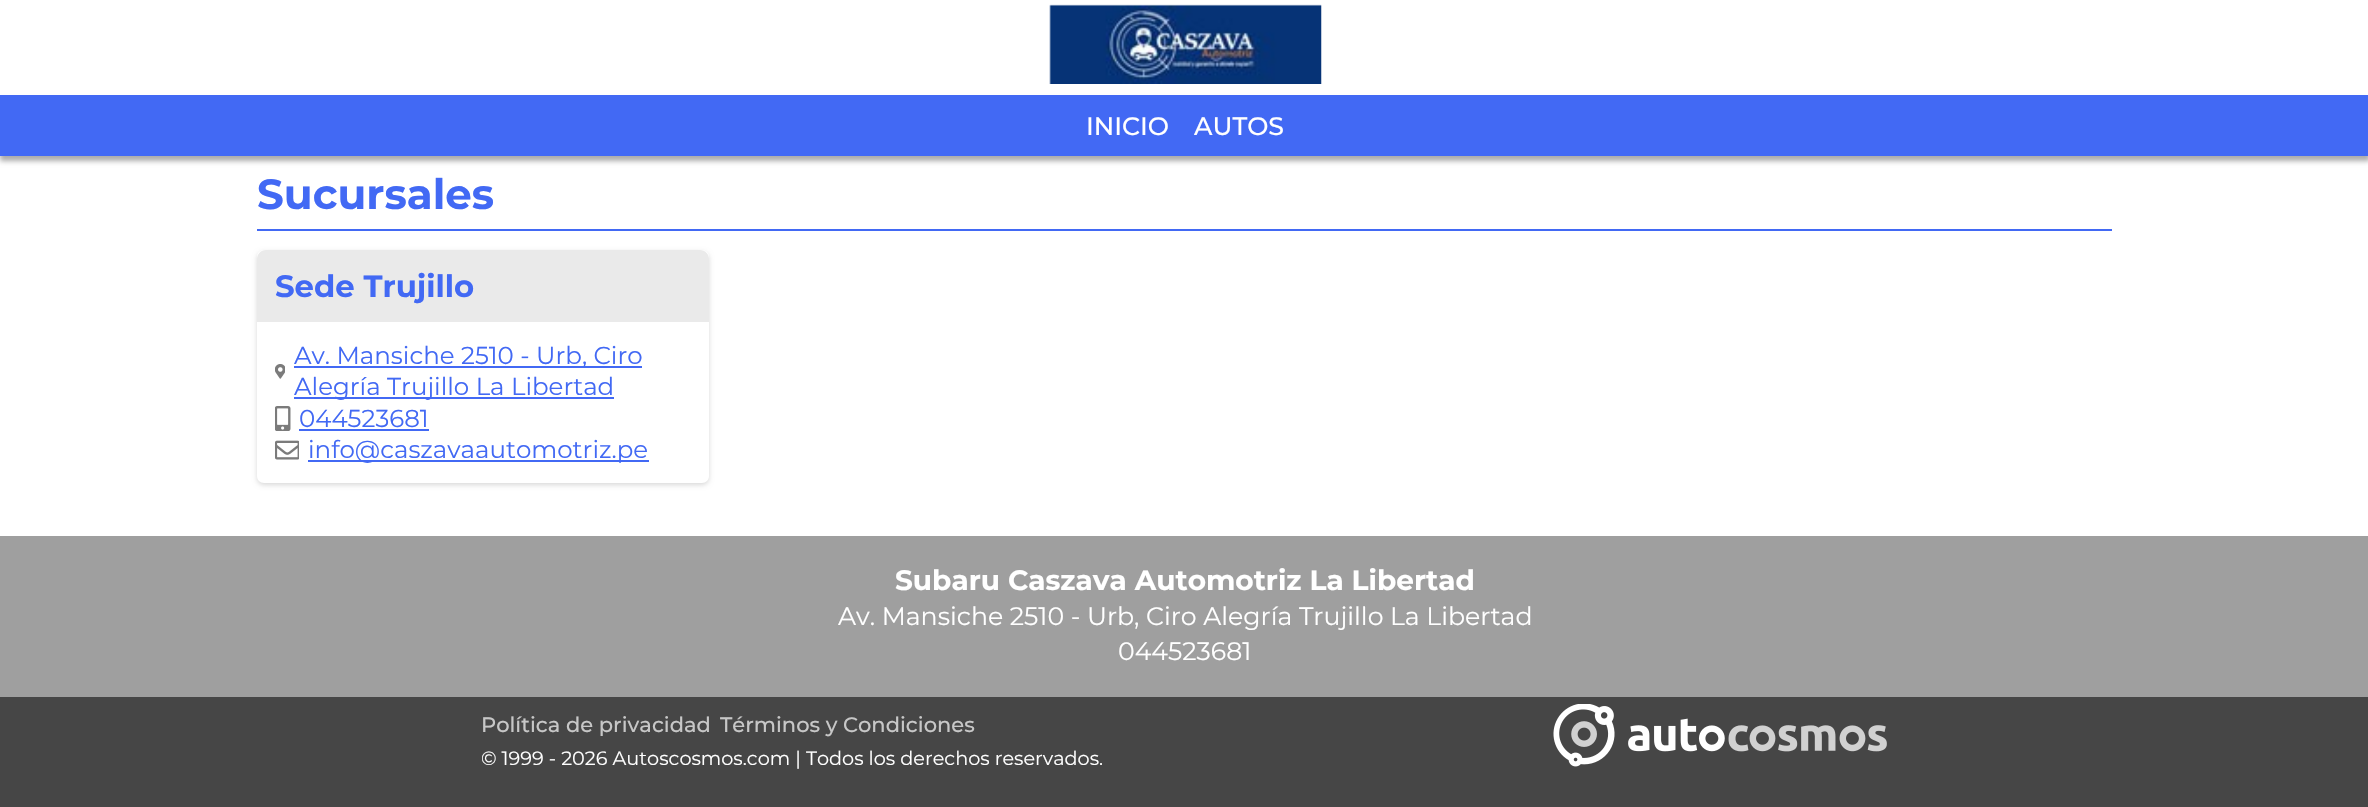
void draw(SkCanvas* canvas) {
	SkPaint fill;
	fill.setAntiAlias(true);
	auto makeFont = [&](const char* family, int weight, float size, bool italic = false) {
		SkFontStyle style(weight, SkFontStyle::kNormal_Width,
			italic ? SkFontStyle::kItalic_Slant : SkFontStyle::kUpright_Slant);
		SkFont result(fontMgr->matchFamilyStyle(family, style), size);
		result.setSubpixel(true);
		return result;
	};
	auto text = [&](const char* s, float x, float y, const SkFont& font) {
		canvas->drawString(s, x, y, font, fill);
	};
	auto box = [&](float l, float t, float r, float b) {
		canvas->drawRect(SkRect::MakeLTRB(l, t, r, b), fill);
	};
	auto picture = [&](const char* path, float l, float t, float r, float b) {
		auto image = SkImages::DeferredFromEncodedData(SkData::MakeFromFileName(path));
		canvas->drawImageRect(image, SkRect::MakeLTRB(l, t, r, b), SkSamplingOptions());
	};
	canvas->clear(0xFFFFFFFF);
	picture("image0.png", 1049, 4, 1322, 84);
	fill.setColor(0x54000000);
	fill.setMaskFilter(SkMaskFilter::MakeBlur(kNormal_SkBlurStyle, 2.5f));
	canvas->drawRect(SkRect::MakeLTRB(0, 100, 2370, 161), fill);
	fill.setMaskFilter(nullptr);
	fill.setColor(0xFF4269F4);
	box(0, 95, 2368, 156);
	box(257, 229, 2112, 231);
	canvas->save();
	canvas->clipPath(SkPathBuilder(SkPathFillType::kEvenOdd).moveTo(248, 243).lineTo(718, 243).lineTo(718, 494).lineTo(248, 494).close().moveTo(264, 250).lineTo(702, 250).cubicTo(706, 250, 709, 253, 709, 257).lineTo(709, 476).cubicTo(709, 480, 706, 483, 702, 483).lineTo(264, 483).cubicTo(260, 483, 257, 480, 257, 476).lineTo(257, 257).cubicTo(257, 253, 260, 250, 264, 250).close().detach(), true);
	fill.setColor(0x26000000);
	fill.setMaskFilter(SkMaskFilter::MakeBlur(kNormal_SkBlurStyle, 2.5f));
	canvas->drawRoundRect(SkRect::MakeLTRB(257, 252, 709, 485), 7, 7, fill);
	fill.setMaskFilter(nullptr);
	canvas->restore();
	fill.setColor(0xFFEAEAEA);
	canvas->drawPath(SkPathBuilder().moveTo(266, 250).lineTo(700, 250).cubicTo(705, 250, 709, 254, 709, 259).lineTo(709, 322).lineTo(257, 322).lineTo(257, 259).cubicTo(257, 254, 261, 250, 266, 250).close().detach(), fill);
	fill.setColor(0xFF4269F4);
	box(294, 366, 642, 368);
	picture("image1.png", 275, 364, 285, 379);
	box(294, 397, 614, 399);
	picture("image2.png", 275, 406, 291, 431);
	box(299, 429, 429, 431);
	picture("image3.png", 275, 440, 299, 460);
	box(308, 460, 649, 462);
	fill.setColor(0xFF464646);
	box(0, 697, 2368, 807);
	fill.setColor(0xFF9F9F9F);
	box(0, 536, 2368, 697);
	picture("image4.png", 1553, 704, 1887, 767);
	auto font1 = makeFont("Montserrat", 500, 25.2f);
	fill.setColor(0xFFFFFFFF);
	text("INICIO", 1086, 135, font1);
	text("AUTOS", 1194, 135, font1);
	auto font2 = makeFont("Montserrat", 700, 42);
	fill.setColor(0xFF4269F4);
	text("Sucursales", 257, 209, font2);
	auto font3 = makeFont("Montserrat", 700, 30.75f);
	text("Sede Trujillo", 275, 297, font3);
	auto font4 = makeFont("Montserrat", 400, 24.5f);
	text("Av. Mansiche 2510 - Urb, Ciro", 294, 364, font4);
	text("Alegría Trujillo La Libertad", 294, 395, font4);
	text("044523681", 299, 427, font4);
	text("info@caszavaautomotriz.pe", 308, 458, font4);
	auto font5 = makeFont("Montserrat", 700, 28);
	fill.setColor(0xFFFFFFFF);
	text("Subaru Caszava Automotriz La Libertad", 895, 590, font5);
	auto font6 = makeFont("Montserrat", 400, 25.2f);
	text("Av. Mansiche 2510 - Urb, Ciro Alegría Trujillo La Libertad", 838, 625, font6);
	text("044523681", 1118, 660, font6);
	auto font7 = makeFont("Montserrat", 500, 21);
	fill.setColor(0xFFC7C7C7);
	text("Política de privacidad", 481, 732, font7);
	text("Términos y Condiciones", 720, 732, font7);
	auto font8 = makeFont("Montserrat", 400, 19.25f);
	fill.setColor(0xFFFFFFFF);
	text("© 1999 - 2026 Autoscosmos.com | Todos los derechos reservados.", 481, 765, font8);
}
